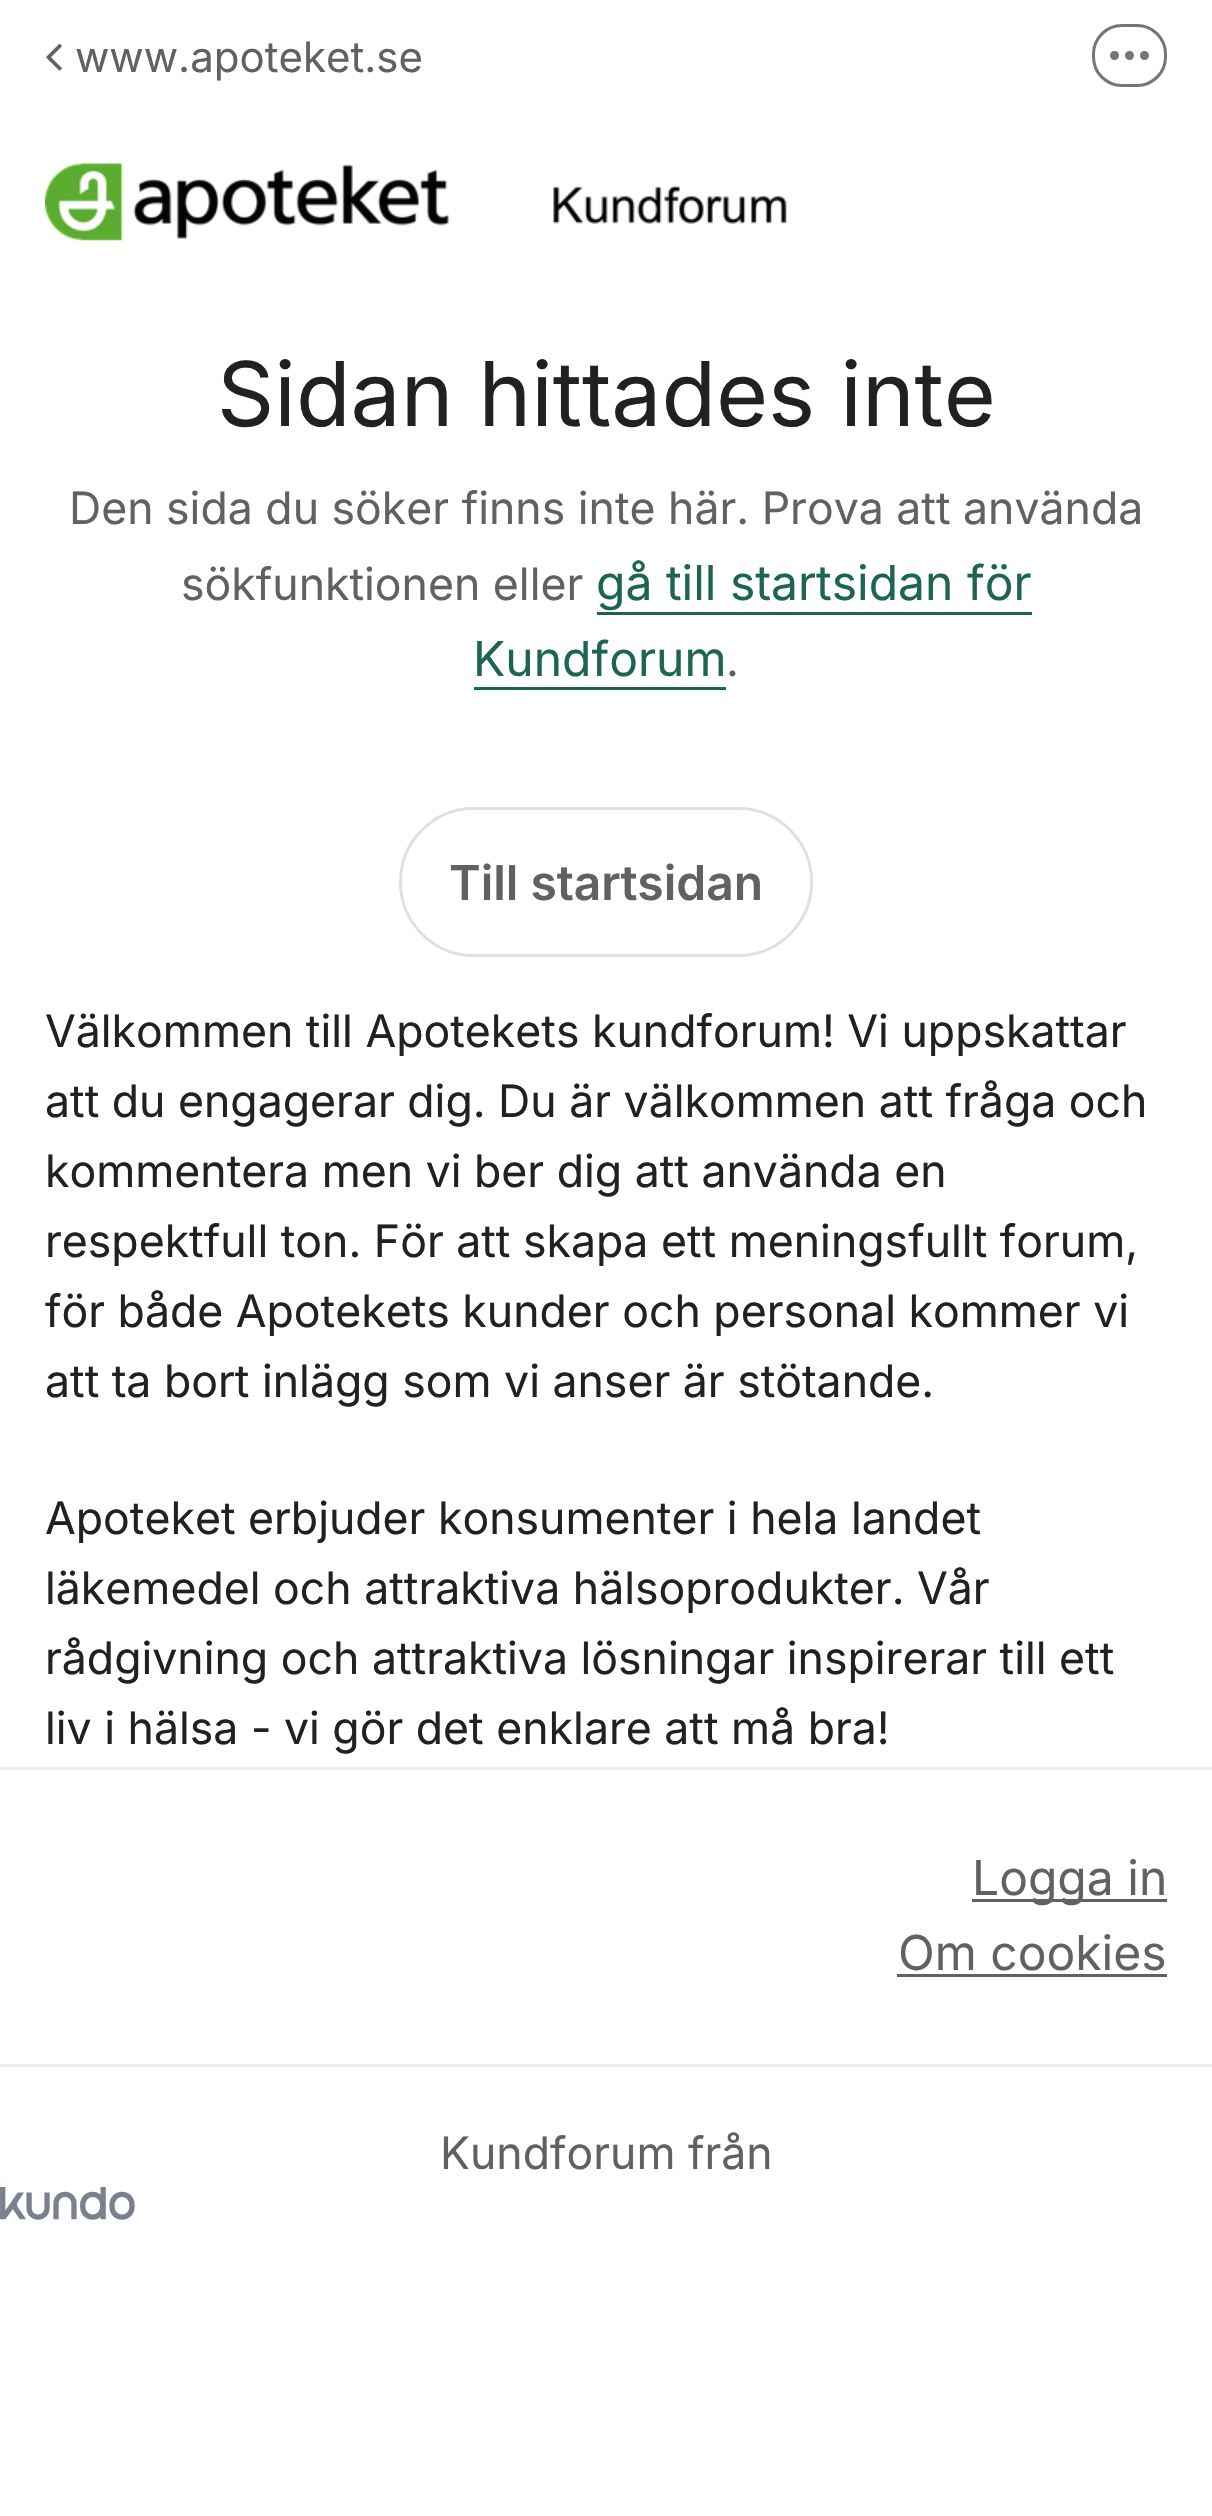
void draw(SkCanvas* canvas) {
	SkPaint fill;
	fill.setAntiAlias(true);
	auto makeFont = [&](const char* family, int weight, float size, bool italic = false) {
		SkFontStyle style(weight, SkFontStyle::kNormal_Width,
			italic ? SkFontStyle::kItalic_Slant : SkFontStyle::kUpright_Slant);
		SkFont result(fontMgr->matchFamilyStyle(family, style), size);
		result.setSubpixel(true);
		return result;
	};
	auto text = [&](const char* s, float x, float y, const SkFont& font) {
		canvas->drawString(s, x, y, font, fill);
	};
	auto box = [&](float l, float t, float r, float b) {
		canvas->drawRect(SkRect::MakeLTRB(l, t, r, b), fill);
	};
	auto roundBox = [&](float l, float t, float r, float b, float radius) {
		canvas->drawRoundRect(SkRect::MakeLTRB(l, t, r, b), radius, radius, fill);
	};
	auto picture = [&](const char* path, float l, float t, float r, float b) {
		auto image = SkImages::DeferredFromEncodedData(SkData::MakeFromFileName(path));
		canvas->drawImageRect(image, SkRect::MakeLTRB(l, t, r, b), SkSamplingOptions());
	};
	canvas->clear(0xFFFFFFFF);
	picture("image0.png", 46, 43, 62, 71);
	fill.setStyle(SkPaint::kStroke_Style);
	fill.setStrokeWidth(3);
	fill.setColor(0xFF757575);
	canvas->drawRoundRect(SkRect::MakeLTRB(1093.5f, 25.5f, 1165.5f, 85.5f), 28.5f, 28.5f, fill);
	fill.setStyle(SkPaint::kFill_Style);
	canvas->drawCircle(1114.5f, 55.5f, 4.5f, fill);
	canvas->drawCircle(1129.5f, 55.5f, 4.5f, fill);
	canvas->drawCircle(1144.5f, 55.5f, 4.5f, fill);
	picture("image1.png", 45, 163, 787, 242);
	fill.setColor(0xFF1D6453);
	box(597, 612, 1032, 615);
	box(474, 687, 726, 690);
	fill.setStyle(SkPaint::kStroke_Style);
	fill.setColor(0xFFE0E0E0);
	canvas->drawRoundRect(SkRect::MakeLTRB(400.5f, 808.5f, 811.5f, 955.5f), 73.5f, 73.5f, fill);
	fill.setStyle(SkPaint::kFill_Style);
	fill.setColor(0xFFFFFFFF);
	roundBox(402, 810, 810, 954, 72);
	fill.setColor(0xFFEEEEEE);
	box(0, 1767, 1212, 1770);
	fill.setColor(0xFF616161);
	box(972, 1899, 1167, 1902);
	box(897, 1974, 1167, 1977);
	fill.setColor(0xFFEEEEEE);
	box(0, 2064, 1212, 2067);
	picture("image2.png", 0, 2187, 135, 2220);
	auto font1 = makeFont("Inter", 400, 42);
	fill.setColor(0xFF616161);
	text("www.apoteket.se", 75, 72, font1);
	auto font2 = makeFont("Inter", 400, 89.25f);
	fill.setColor(0xFF212121);
	text("Sidan hittades inte", 217, 426, font2);
	auto font3 = makeFont("Inter", 400, 44.6f);
	fill.setColor(0xFF616161);
	text("Den sida du söker finns inte här. Prova att använda", 69, 524, font3);
	text("sökfunktionen eller", 181, 600, font3);
	auto font4 = makeFont("Inter", 400, 48);
	fill.setColor(0xFF1D6453);
	text("gå till startsidan för", 596, 600, font4);
	text("Kundforum", 473, 676, font4);
	fill.setColor(0xFF616161);
	text(".", 726, 676, font3);
	auto font5 = makeFont("Inter", 600, 48);
	text("Till startsidan", 449, 900, font5);
	fill.setColor(0xFF212121);
	text("Välkommen till Apotekets kundforum! Vi uppskattar", 45, 1047, font3);
	text("att du engagerar dig. Du är välkommen att fråga och", 45, 1117, font3);
	text("kommentera men vi ber dig att använda en", 45, 1187, font3);
	text("respektfull ton. För att skapa ett meningsfullt forum,", 45, 1257, font3);
	text("för både Apotekets kunder och personal kommer vi", 45, 1327, font3);
	text("att ta bort inlägg som vi anser är stötande.", 45, 1397, font3);
	text("Apoteket erbjuder konsumenter i hela landet", 45, 1534, font3);
	text("läkemedel och attraktiva hälsoprodukter. Vår", 45, 1604, font3);
	text("rådgivning och attraktiva lösningar inspirerar till ett", 45, 1674, font3);
	text("liv i hälsa - vi gör det enklare att må bra!", 45, 1744, font3);
	fill.setColor(0xFF616161);
	text("Logga in", 972, 1895, font4);
	text("Om cookies", 898, 1970, font4);
	text("Kundforum från", 440, 2169, font3);
}
